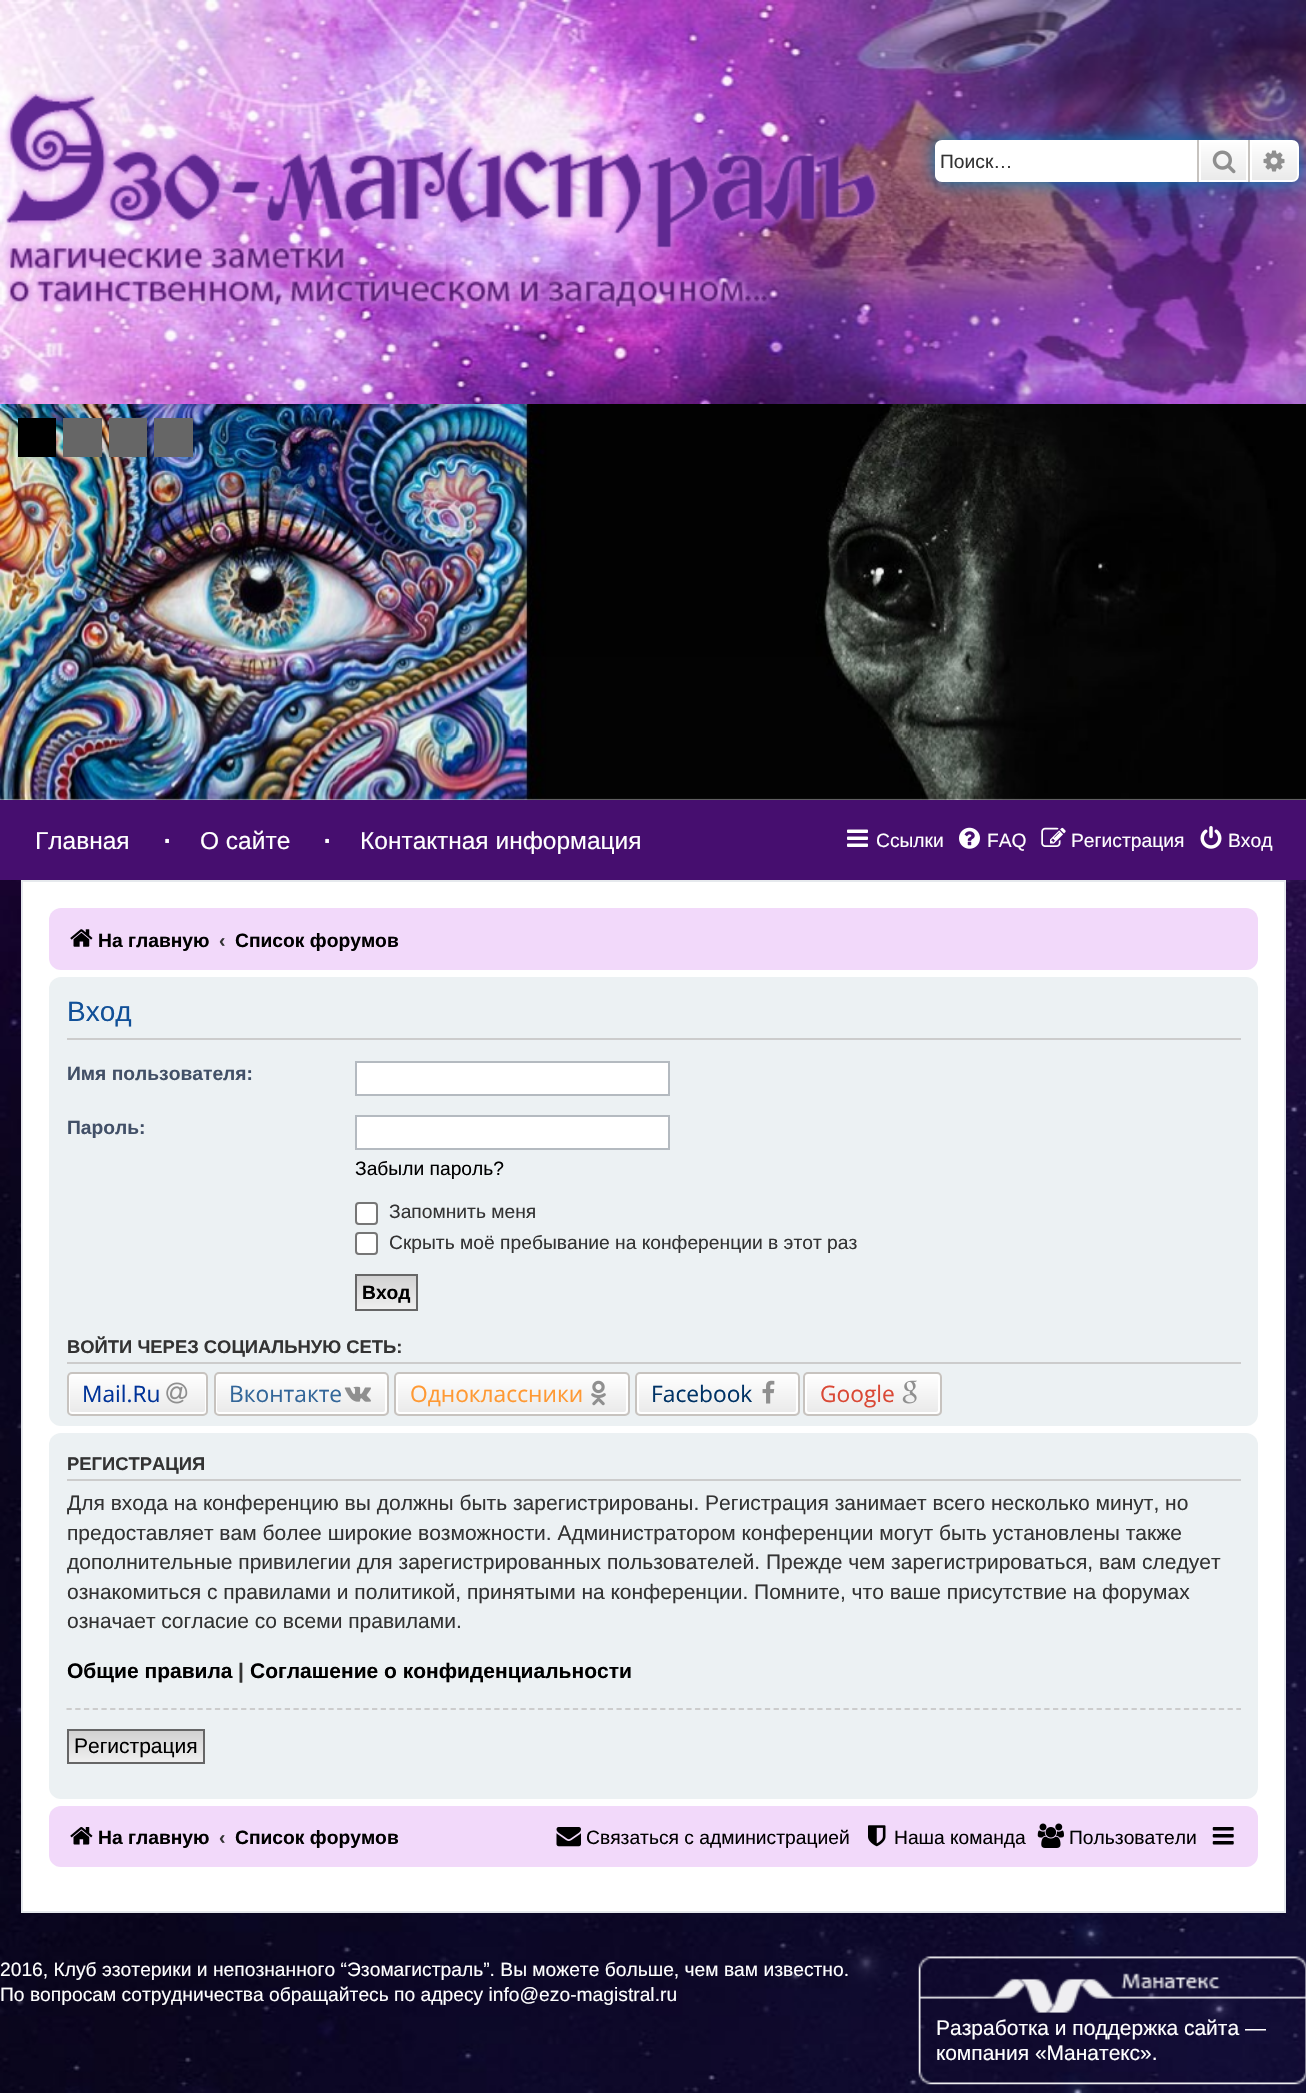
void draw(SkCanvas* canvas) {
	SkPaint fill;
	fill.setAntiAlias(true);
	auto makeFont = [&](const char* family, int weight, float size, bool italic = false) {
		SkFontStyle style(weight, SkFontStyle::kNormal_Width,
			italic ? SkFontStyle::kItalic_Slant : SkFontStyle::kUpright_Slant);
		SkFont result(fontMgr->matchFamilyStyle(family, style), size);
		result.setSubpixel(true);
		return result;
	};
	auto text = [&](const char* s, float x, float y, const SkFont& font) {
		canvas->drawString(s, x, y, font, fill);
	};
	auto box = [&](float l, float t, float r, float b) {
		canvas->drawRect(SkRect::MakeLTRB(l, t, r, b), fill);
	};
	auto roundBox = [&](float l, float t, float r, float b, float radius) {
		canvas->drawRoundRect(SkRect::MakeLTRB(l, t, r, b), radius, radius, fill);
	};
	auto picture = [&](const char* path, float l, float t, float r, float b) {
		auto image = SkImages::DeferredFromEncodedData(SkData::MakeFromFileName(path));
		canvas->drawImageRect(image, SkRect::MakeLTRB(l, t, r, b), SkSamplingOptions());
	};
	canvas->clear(0xFFFFFFFF);
	picture("image0.png", 0, 0, 1306, 2093);
	picture("image1.png", 2, 90, 882, 311);
	fill.setColor(0xFF0075B0);
	fill.setMaskFilter(SkMaskFilter::MakeBlur(kNormal_SkBlurStyle, 9));
	canvas->drawRoundRect(SkRect::MakeLTRB(935, 140, 1299, 182), 7, 7, fill);
	fill.setMaskFilter(nullptr);
	fill.setColor(0xFFFFFFFF);
	canvas->drawPath(SkPathBuilder().moveTo(942, 140).lineTo(1197, 140).lineTo(1197, 182).lineTo(942, 182).cubicTo(938, 182, 935, 179, 935, 175).lineTo(935, 147).cubicTo(935, 143, 938, 140, 942, 140).close().detach(), fill);
	{
		const SkColor colors[] = {0xFFFFFFFF, 0xFFE9E9E9};
		const float stops[] = {0, 1};
		const SkPoint ends[] = {{1223, 140}, {1223, 182}};
		fill.setShader(SkGradientShader::MakeLinear(ends, colors, stops, 2, SkTileMode::kClamp));
		fill.setAlpha(255);
	}
	box(1201, 142, 1246, 180);
	fill.setStyle(SkPaint::kStroke_Style);
	fill.setStrokeWidth(2);
	fill.setShader(nullptr);
	fill.setColor(0xFFFFFFFF);
	canvas->drawRect(SkRect::MakeLTRB(1200, 141, 1247, 181), fill);
	fill.setStyle(SkPaint::kFill_Style);
	fill.setColor(0xFFC7C3BF);
	box(1248, 140, 1250, 182);
	box(1197, 140, 1199, 182);
	picture("image2.png", 1212, 150, 1236, 174);
	{
		const SkColor colors[] = {0xFFFFFFFF, 0xFFE9E9E9};
		const float stops[] = {0, 1};
		const SkPoint ends[] = {{1274, 140}, {1274, 182}};
		fill.setShader(SkGradientShader::MakeLinear(ends, colors, stops, 2, SkTileMode::kClamp));
		fill.setAlpha(255);
	}
	canvas->drawPath(SkPathBuilder().moveTo(1251, 141).lineTo(1292, 141).cubicTo(1295.5f, 141, 1298, 143.5f, 1298, 147).lineTo(1298, 175).cubicTo(1298, 178.5f, 1295.5f, 181, 1292, 181).lineTo(1251, 181).close().detach(), fill);
	fill.setStyle(SkPaint::kStroke_Style);
	fill.setShader(nullptr);
	fill.setColor(0xFFFFFFFF);
	canvas->drawPath(SkPathBuilder().moveTo(1251, 141).lineTo(1292, 141).cubicTo(1295.5f, 141, 1298, 143.5f, 1298, 147).lineTo(1298, 175).cubicTo(1298, 178.5f, 1295.5f, 181, 1292, 181).lineTo(1251, 181).close().detach(), fill);
	picture("image3.png", 1263, 150, 1285, 172);
	fill.setStyle(SkPaint::kFill_Style);
	box(0, 798, 1306, 800);
	picture("image4.png", 0, 404, 1306, 800);
	fill.setColor(0xFF000000);
	box(18, 418, 56, 457);
	fill.setColor(0xFF666666);
	box(63, 418, 102, 457);
	box(109, 418, 147, 457);
	box(154, 418, 193, 457);
	fill.setColor(0xFF460E6F);
	box(0, 800, 1306, 880);
	picture("image5.png", 847, 829, 868, 847);
	picture("image6.png", 959, 827, 980, 849);
	picture("image7.png", 1041, 827, 1066, 847);
	picture("image8.png", 1200, 826, 1222, 849);
	fill.setColor(0xFFFFFFFF);
	canvas->drawRect(SkRect::MakeLTRB(22, 881, 1285, 1912), fill);
	fill.setStyle(SkPaint::kStroke_Style);
	fill.setColor(0xFFE6E9ED);
	canvas->drawRect(SkRect::MakeLTRB(22, 881, 1285, 1912), fill);
	fill.setStyle(SkPaint::kFill_Style);
	fill.setColor(0xFFF2D9FA);
	roundBox(49, 908, 1258, 970, 12);
	picture("image9.png", 70, 929, 93, 947);
	fill.setColor(0xFFECF1F3);
	roundBox(49, 977, 1258, 1426, 12);
	fill.setColor(0xFFCCCCCC);
	box(67, 1038, 1241, 1040);
	fill.setColor(0xFFFFFFFF);
	canvas->drawRect(SkRect::MakeLTRB(356, 1062, 669, 1095), fill);
	fill.setStyle(SkPaint::kStroke_Style);
	fill.setColor(0xFFB4BAC0);
	canvas->drawRect(SkRect::MakeLTRB(356, 1062, 669, 1095), fill);
	fill.setStyle(SkPaint::kFill_Style);
	fill.setColor(0xFFFFFFFF);
	canvas->drawRect(SkRect::MakeLTRB(356, 1116, 669, 1149), fill);
	fill.setStyle(SkPaint::kStroke_Style);
	fill.setColor(0xFFB4BAC0);
	canvas->drawRect(SkRect::MakeLTRB(356, 1116, 669, 1149), fill);
	fill.setStyle(SkPaint::kFill_Style);
	fill.setColor(0xFFFFFFFF);
	canvas->drawRoundRect(SkRect::MakeLTRB(356, 1203, 377, 1224), 3, 3, fill);
	fill.setStyle(SkPaint::kStroke_Style);
	fill.setColor(0xFF767676);
	canvas->drawRoundRect(SkRect::MakeLTRB(356, 1203, 377, 1224), 3, 3, fill);
	fill.setStyle(SkPaint::kFill_Style);
	fill.setColor(0xFFFFFFFF);
	canvas->drawRoundRect(SkRect::MakeLTRB(356, 1233, 377, 1254), 3, 3, fill);
	fill.setStyle(SkPaint::kStroke_Style);
	fill.setColor(0xFF767676);
	canvas->drawRoundRect(SkRect::MakeLTRB(356, 1233, 377, 1254), 3, 3, fill);
	fill.setStyle(SkPaint::kFill_Style);
	{
		const SkColor colors[] = {0xFFD2D2D2, 0xFFEFEFEF};
		const float stops[] = {0, 1};
		const SkPoint ends[] = {{387, 1276}, {387, 1309}};
		fill.setShader(SkGradientShader::MakeLinear(ends, colors, stops, 2, SkTileMode::kClamp));
		fill.setAlpha(255);
	}
	box(357, 1276, 416, 1309);
	fill.setStyle(SkPaint::kStroke_Style);
	fill.setShader(nullptr);
	fill.setColor(0xFF666666);
	canvas->drawRect(SkRect::MakeLTRB(356, 1275, 417, 1310), fill);
	fill.setStyle(SkPaint::kFill_Style);
	fill.setColor(0xFFCCCCCC);
	box(67, 1362, 1241, 1364);
	canvas->save();
	canvas->clipPath(SkPathBuilder().moveTo(72, 1372).lineTo(203, 1372).cubicTo(206, 1372, 208, 1374, 208, 1377).lineTo(208, 1411).cubicTo(208, 1414, 206, 1416, 203, 1416).lineTo(72, 1416).cubicTo(69, 1416, 67, 1414, 67, 1411).lineTo(67, 1377).cubicTo(67, 1374, 69, 1372, 72, 1372).close().detach(), true);
	{
		const SkColor colors[] = {0xFFFFFFFF, 0xFFE9E9E9};
		const float stops[] = {0, 1};
		const SkPoint ends[] = {{137, 1374}, {137, 1414}};
		fill.setShader(SkGradientShader::MakeLinear(ends, colors, stops, 2, SkTileMode::kClamp));
		fill.setAlpha(255);
	}
	box(67, 1374, 208, 1414);
	canvas->restore();
	fill.setStyle(SkPaint::kStroke_Style);
	fill.setShader(nullptr);
	fill.setColor(0xFFFFFFFF);
	canvas->drawRoundRect(SkRect::MakeLTRB(69, 1375, 206, 1413), 3, 3, fill);
	fill.setColor(0xFFC7C3BF);
	canvas->drawRoundRect(SkRect::MakeLTRB(68, 1373, 207, 1415), 4, 4, fill);
	picture("image10.png", 166, 1382, 188, 1404);
	canvas->save();
	canvas->clipPath(SkPathBuilder().moveTo(219, 1372).lineTo(384, 1372).cubicTo(387, 1372, 389, 1374, 389, 1377).lineTo(389, 1411).cubicTo(389, 1414, 387, 1416, 384, 1416).lineTo(219, 1416).cubicTo(216, 1416, 214, 1414, 214, 1411).lineTo(214, 1377).cubicTo(214, 1374, 216, 1372, 219, 1372).close().detach(), true);
	fill.setStyle(SkPaint::kFill_Style);
	{
		const SkColor colors[] = {0xFFFFFFFF, 0xFFE9E9E9};
		const float stops[] = {0, 1};
		const SkPoint ends[] = {{301, 1374}, {301, 1414}};
		fill.setShader(SkGradientShader::MakeLinear(ends, colors, stops, 2, SkTileMode::kClamp));
		fill.setAlpha(255);
	}
	box(214, 1374, 389, 1414);
	canvas->restore();
	fill.setStyle(SkPaint::kStroke_Style);
	fill.setShader(nullptr);
	fill.setColor(0xFFFFFFFF);
	canvas->drawRoundRect(SkRect::MakeLTRB(216, 1375, 386, 1413), 3, 3, fill);
	fill.setColor(0xFFC7C3BF);
	canvas->drawRoundRect(SkRect::MakeLTRB(215, 1373, 388, 1415), 4, 4, fill);
	picture("image11.png", 344, 1386, 371, 1402);
	canvas->save();
	canvas->clipPath(SkPathBuilder().moveTo(399, 1372).lineTo(625, 1372).cubicTo(628, 1372, 630, 1374, 630, 1377).lineTo(630, 1411).cubicTo(630, 1414, 628, 1416, 625, 1416).lineTo(399, 1416).cubicTo(396, 1416, 394, 1414, 394, 1411).lineTo(394, 1377).cubicTo(394, 1374, 396, 1372, 399, 1372).close().detach(), true);
	fill.setStyle(SkPaint::kFill_Style);
	{
		const SkColor colors[] = {0xFFFFFFFF, 0xFFE9E9E9};
		const float stops[] = {0, 1};
		const SkPoint ends[] = {{512, 1374}, {512, 1414}};
		fill.setShader(SkGradientShader::MakeLinear(ends, colors, stops, 2, SkTileMode::kClamp));
		fill.setAlpha(255);
	}
	box(394, 1374, 630, 1414);
	canvas->restore();
	fill.setStyle(SkPaint::kStroke_Style);
	fill.setShader(nullptr);
	fill.setColor(0xFFFFFFFF);
	canvas->drawRoundRect(SkRect::MakeLTRB(397, 1375, 627, 1413), 3, 3, fill);
	fill.setColor(0xFFC7C3BF);
	canvas->drawRoundRect(SkRect::MakeLTRB(395, 1373, 629, 1415), 4, 4, fill);
	picture("image12.png", 591, 1380, 606, 1406);
	canvas->save();
	canvas->clipPath(SkPathBuilder().moveTo(640, 1372).lineTo(795, 1372).cubicTo(798, 1372, 800, 1374, 800, 1377).lineTo(800, 1411).cubicTo(800, 1414, 798, 1416, 795, 1416).lineTo(640, 1416).cubicTo(637, 1416, 635, 1414, 635, 1411).lineTo(635, 1377).cubicTo(635, 1374, 637, 1372, 640, 1372).close().detach(), true);
	fill.setStyle(SkPaint::kFill_Style);
	{
		const SkColor colors[] = {0xFFFFFFFF, 0xFFE9E9E9};
		const float stops[] = {0, 1};
		const SkPoint ends[] = {{718, 1374}, {718, 1414}};
		fill.setShader(SkGradientShader::MakeLinear(ends, colors, stops, 2, SkTileMode::kClamp));
		fill.setAlpha(255);
	}
	box(635, 1374, 800, 1414);
	canvas->restore();
	fill.setStyle(SkPaint::kStroke_Style);
	fill.setShader(nullptr);
	fill.setColor(0xFFFFFFFF);
	canvas->drawRoundRect(SkRect::MakeLTRB(638, 1375, 797, 1413), 3, 3, fill);
	fill.setColor(0xFFC7C3BF);
	canvas->drawRoundRect(SkRect::MakeLTRB(636, 1373, 799, 1415), 4, 4, fill);
	picture("image13.png", 762, 1380, 775, 1404);
	canvas->save();
	canvas->clipPath(SkPathBuilder().moveTo(808, 1372).lineTo(937, 1372).cubicTo(940, 1372, 942, 1374, 942, 1377).lineTo(942, 1411).cubicTo(942, 1414, 940, 1416, 937, 1416).lineTo(808, 1416).cubicTo(805, 1416, 803, 1414, 803, 1411).lineTo(803, 1377).cubicTo(803, 1374, 805, 1372, 808, 1372).close().detach(), true);
	fill.setStyle(SkPaint::kFill_Style);
	{
		const SkColor colors[] = {0xFFFFFFFF, 0xFFE9E9E9};
		const float stops[] = {0, 1};
		const SkPoint ends[] = {{872, 1374}, {872, 1414}};
		fill.setShader(SkGradientShader::MakeLinear(ends, colors, stops, 2, SkTileMode::kClamp));
		fill.setAlpha(255);
	}
	box(803, 1374, 942, 1414);
	canvas->restore();
	fill.setStyle(SkPaint::kStroke_Style);
	fill.setShader(nullptr);
	fill.setColor(0xFFFFFFFF);
	canvas->drawRoundRect(SkRect::MakeLTRB(806, 1375, 939, 1413), 3, 3, fill);
	fill.setColor(0xFFC7C3BF);
	canvas->drawRoundRect(SkRect::MakeLTRB(804, 1373, 941, 1415), 4, 4, fill);
	picture("image14.png", 902, 1380, 917, 1404);
	fill.setStyle(SkPaint::kFill_Style);
	fill.setColor(0xFFECF1F3);
	roundBox(49, 1433, 1258, 1799, 12);
	fill.setColor(0xFFCCCCCC);
	box(67, 1479, 1241, 1481);
	fill.setStyle(SkPaint::kStroke_Style);
	fill.setStrokeWidth(1.8f);
	fill.setPathEffect(SkDashPathEffect::Make({{5.25f, 3.48f}}, 0));
	canvas->drawPath(SkPathBuilder().moveTo(66.5f, 1709).lineTo(1241, 1709).detach(), fill);
	fill.setPathEffect(nullptr);
	fill.setStyle(SkPaint::kFill_Style);
	{
		const SkColor colors[] = {0xFFD2D2D2, 0xFFEFEFEF};
		const float stops[] = {0, 1};
		const SkPoint ends[] = {{136, 1731}, {136, 1762}};
		fill.setShader(SkGradientShader::MakeLinear(ends, colors, stops, 2, SkTileMode::kClamp));
		fill.setAlpha(255);
	}
	box(69, 1731, 203, 1762);
	fill.setStyle(SkPaint::kStroke_Style);
	fill.setStrokeWidth(2);
	fill.setShader(nullptr);
	fill.setColor(0xFF666666);
	canvas->drawRect(SkRect::MakeLTRB(68, 1730, 204, 1763), fill);
	fill.setStyle(SkPaint::kFill_Style);
	fill.setColor(0xFFF2D9FA);
	roundBox(49, 1806, 1258, 1867, 12);
	picture("image15.png", 70, 1827, 93, 1845);
	picture("image16.png", 556, 1827, 581, 1847);
	picture("image17.png", 868, 1825, 886, 1847);
	picture("image18.png", 1037, 1823, 1064, 1848);
	picture("image19.png", 1212, 1827, 1234, 1845);
	picture("image20.png", 918, 1956, 1306, 2085);
	auto font1 = makeFont("Liberation Sans", 400, 19.25f);
	fill.setColor(0xFF333333);
	text("Поиск…", 940, 168, font1);
	auto font2 = makeFont("Liberation Sans", 400, 24.5f);
	fill.setColor(0xFFFFFFFF);
	text("Главная", 35, 849, font2);
	auto font3 = makeFont("Liberation Sans", 400, 37);
	text("·", 161, 851, font3);
	text("О сайте", 200, 849, font2);
	text("·", 321, 851, font3);
	text("Контактная информация", 360, 849, font2);
	text("Ссылки", 876, 847, font1);
	text("FAQ", 987, 847, font1);
	text("Регистрация", 1071, 847, font1);
	text("Вход", 1228, 847, font1);
	auto font4 = makeFont("Liberation Sans", 700, 19.25f);
	fill.setColor(0xFF000000);
	text("На главную", 98, 947, font4);
	fill.setColor(0xFF333333);
	text("‹", 219, 947, font4);
	fill.setColor(0xFF000000);
	text("Список форумов", 235, 947, font4);
	auto font5 = makeFont("Liberation Sans", 400, 28);
	fill.setColor(0xFF115098);
	text("Вход", 67, 1021, font5);
	fill.setColor(0xFF425067);
	text("Имя пользователя:", 67, 1080, font4);
	text("Пароль:", 67, 1134, font4);
	fill.setColor(0xFF000000);
	text("Забыли пароль?", 355, 1175, font1);
	fill.setColor(0xFF333333);
	text("Запомнить меня", 389, 1218, font1);
	text("Скрыть моё пребывание на конференции в этот раз", 389, 1249, font1);
	fill.setColor(0xFF000000);
	text("Вход", 362, 1299, font4);
	auto font6 = makeFont("Liberation Sans", 700, 18.4f);
	fill.setColor(0xFF333333);
	text("ВОЙТИ ЧЕРЕЗ СОЦИАЛЬНУЮ СЕТЬ:", 67, 1353, font6);
	auto font7 = makeFont("Open Sans", 400, 22.75f);
	fill.setColor(0xFF003399);
	text("Mail.Ru", 82, 1402, font7);
	fill.setColor(0xFF336699);
	text("Вконтакте", 229, 1402, font7);
	fill.setColor(0xFFFF9933);
	text("Одноклассники", 410, 1402, font7);
	fill.setColor(0xFF003366);
	text("Facebook", 651, 1402, font7);
	fill.setColor(0xFFDA4835);
	text("Google", 820, 1402, font7);
	fill.setColor(0xFF333333);
	text("РЕГИСТРАЦИЯ", 67, 1470, font6);
	canvas->save();
	canvas->clipRect(SkRect::MakeLTRB(67, 1442, 1241, 1790));
	auto font8 = makeFont("Liberation Sans", 400, 21);
	text("Для входа на конференцию вы должны быть зарегистрированы. Регистрация занимает всего несколько минут, но", 67, 1510, font8);
	canvas->restore();
	text("предоставляет вам более широкие возможности. Администратором конференции могут быть установлены также", 67, 1540, font8);
	canvas->save();
	canvas->clipRect(SkRect::MakeLTRB(67, 1442, 1241, 1790));
	text("дополнительные привилегии для зарегистрированных пользователей. Прежде чем зарегистрироваться, вам следует", 67, 1569, font8);
	canvas->restore();
	text("ознакомиться с правилами и политикой, принятыми на конференции. Помните, что ваше присутствие на форумах", 67, 1599, font8);
	text("означает согласие со всеми правилами.", 67, 1628, font8);
	auto font9 = makeFont("Liberation Sans", 700, 21);
	fill.setColor(0xFF000000);
	text("Общие правила", 67, 1678, font9);
	fill.setColor(0xFF333333);
	text("|", 238, 1678, font9);
	fill.setColor(0xFF000000);
	text("Соглашение о конфиденциальности", 250, 1678, font9);
	text("Регистрация", 74, 1753, font8);
	text("На главную", 98, 1844, font4);
	fill.setColor(0xFF333333);
	text("‹", 219, 1844, font4);
	fill.setColor(0xFF000000);
	text("Список форумов", 235, 1844, font4);
	text("Связаться с администрацией", 586, 1844, font1);
	text("Наша команда", 894, 1844, font1);
	text("Пользователи", 1069, 1844, font1);
	fill.setColor(0xFFFFFFFF);
	text("2016, Клуб эзотерики и непознанного “Эзомагистраль”. Вы можете больше, чем вам известно.", 0, 1976, font1);
	text("По вопросам сотрудничества обращайтесь по адресу info@ezo-magistral.ru", 0, 2001, font1);
	text("Разработка и поддержка сайта —", 936, 2035, font8);
	text("компания «Манатекс».", 936, 2060, font8);
}
